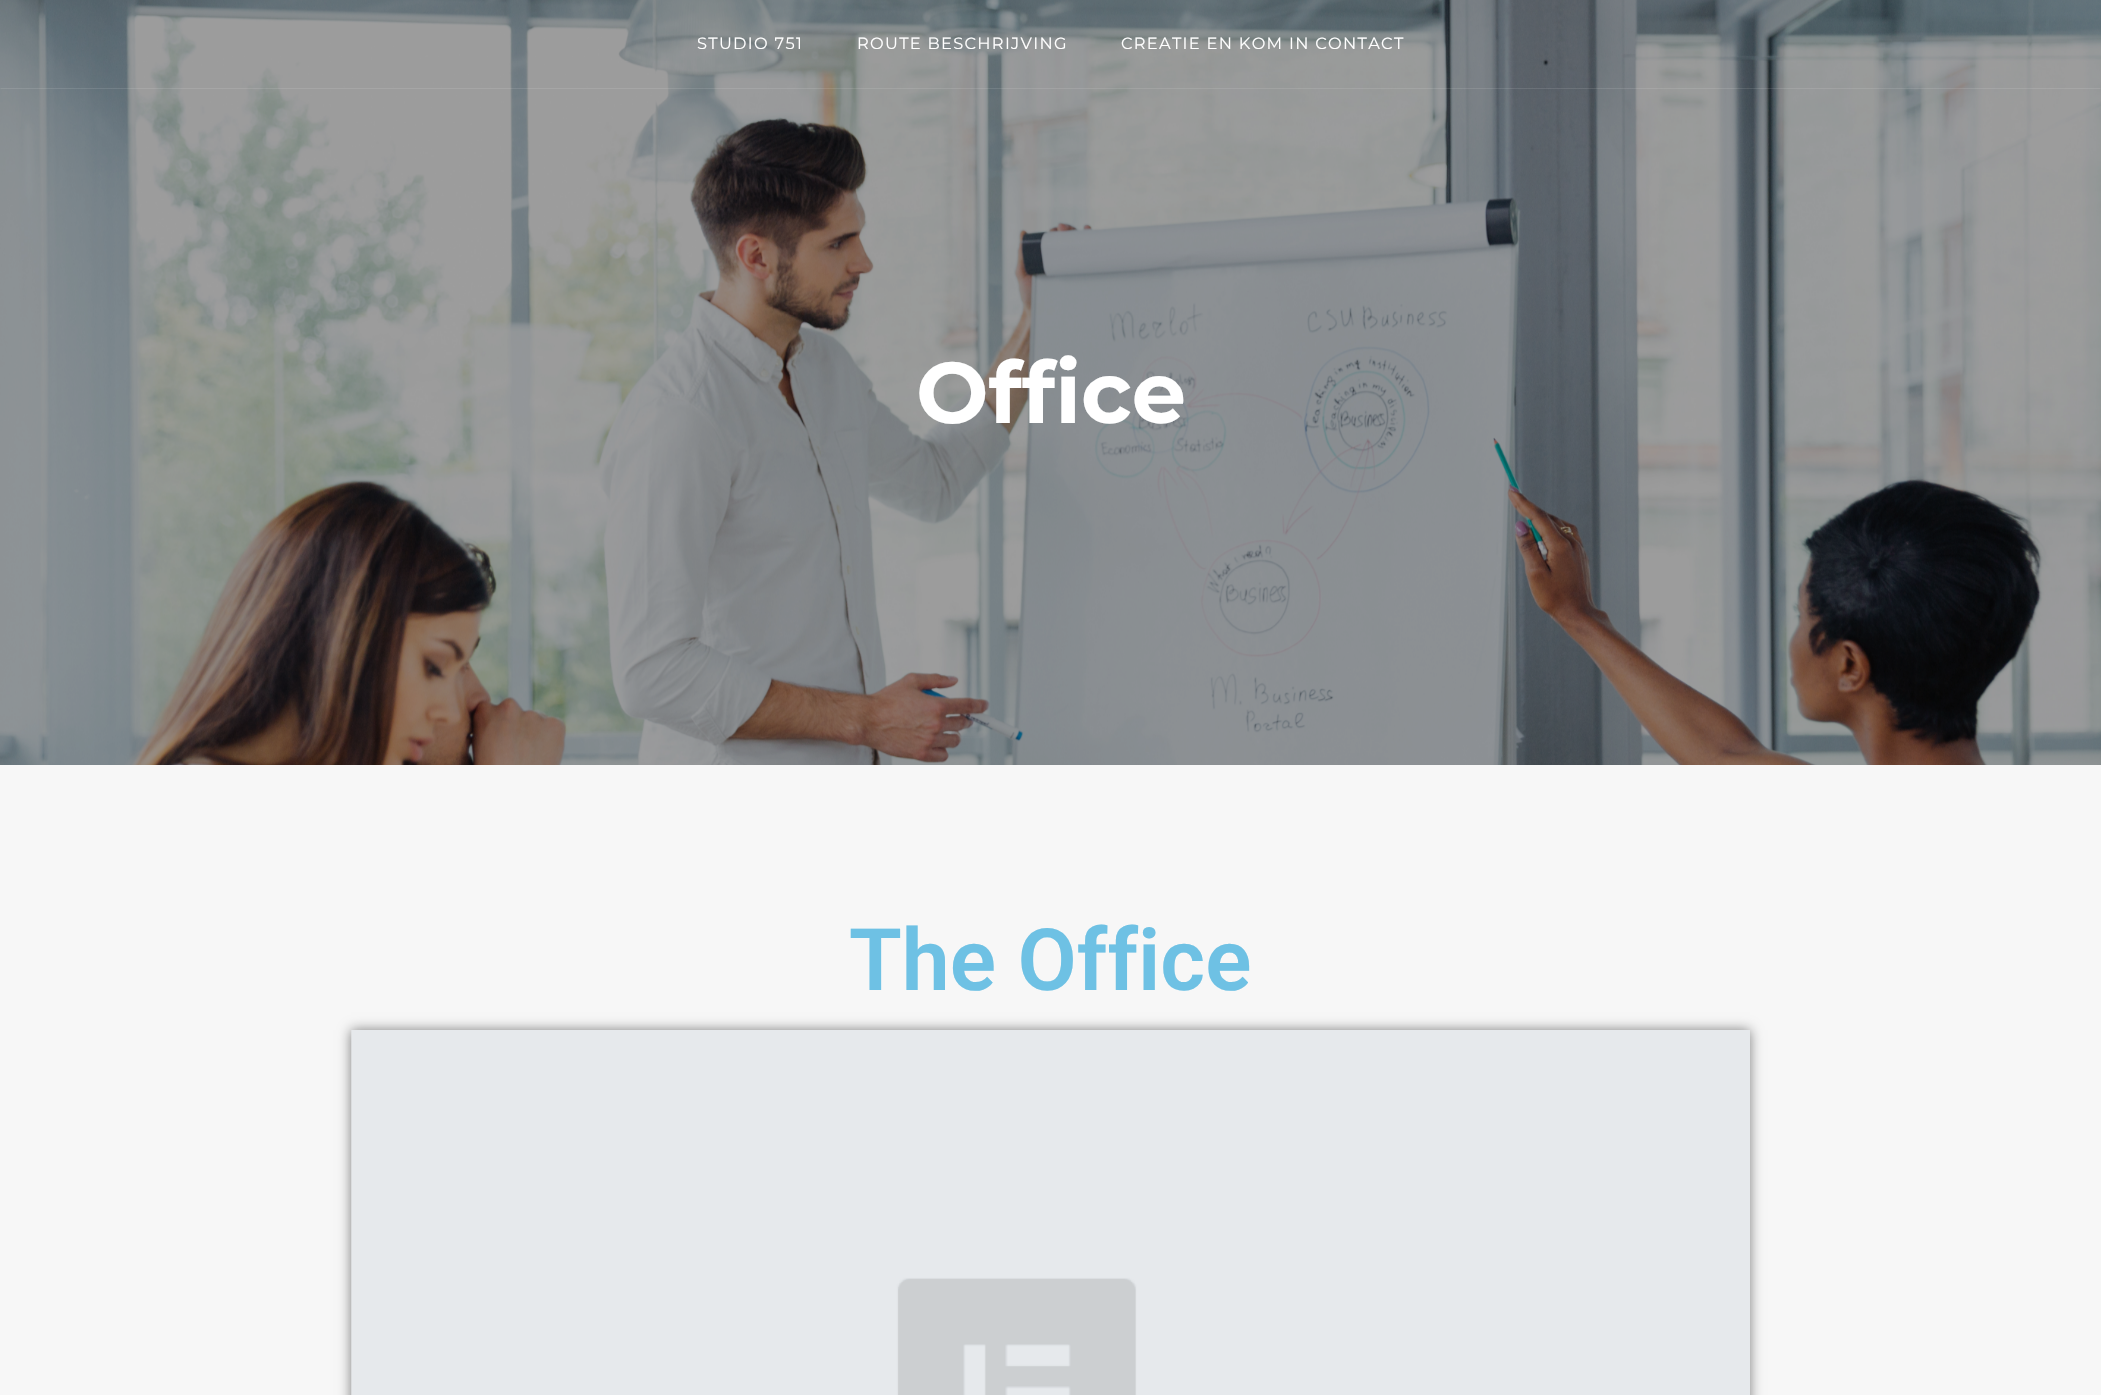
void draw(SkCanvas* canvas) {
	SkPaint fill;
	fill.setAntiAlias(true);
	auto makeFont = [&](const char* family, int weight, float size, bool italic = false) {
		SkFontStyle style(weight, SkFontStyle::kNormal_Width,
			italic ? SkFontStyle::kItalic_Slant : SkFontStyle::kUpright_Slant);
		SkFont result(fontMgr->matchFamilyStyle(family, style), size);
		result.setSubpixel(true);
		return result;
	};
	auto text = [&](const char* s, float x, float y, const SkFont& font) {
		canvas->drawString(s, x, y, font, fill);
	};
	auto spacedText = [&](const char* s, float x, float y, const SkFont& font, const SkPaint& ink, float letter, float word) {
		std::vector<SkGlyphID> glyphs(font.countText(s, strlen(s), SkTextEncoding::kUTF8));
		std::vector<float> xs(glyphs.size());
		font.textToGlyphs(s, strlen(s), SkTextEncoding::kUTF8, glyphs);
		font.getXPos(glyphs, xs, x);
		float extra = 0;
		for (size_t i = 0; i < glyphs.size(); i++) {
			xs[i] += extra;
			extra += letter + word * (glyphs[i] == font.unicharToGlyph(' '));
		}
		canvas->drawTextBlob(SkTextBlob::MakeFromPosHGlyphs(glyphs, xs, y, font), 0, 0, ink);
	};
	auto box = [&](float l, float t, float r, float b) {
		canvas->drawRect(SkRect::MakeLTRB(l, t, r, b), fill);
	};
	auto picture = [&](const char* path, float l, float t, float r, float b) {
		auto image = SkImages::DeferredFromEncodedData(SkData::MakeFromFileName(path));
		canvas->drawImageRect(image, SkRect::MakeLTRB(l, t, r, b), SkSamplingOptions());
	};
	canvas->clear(0xFFFFFFFF);
	picture("image0.png", 0, 0, 2101, 765);
	fill.setColor(0x1AFFFFFF);
	canvas->drawPath(SkPathBuilder().moveTo(2101, 89).lineTo(0, 89).lineTo(1, 88).lineTo(2100, 88).close().detach(), fill);
	fill.setColor(0xFFF7F7F7);
	box(0, 765, 2101, 1395);
	fill.setColor(0x80000000);
	fill.setMaskFilter(SkMaskFilter::MakeBlur(kNormal_SkBlurStyle, 6));
	canvas->drawRect(SkRect::MakeLTRB(351, 1030, 1750, 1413), fill);
	fill.setMaskFilter(nullptr);
	picture("image1.png", 351, 1030, 1750, 1395);
	auto font1 = makeFont("Montserrat", 400, 16.25f);
	fill.setColor(0xFFFFFFFF);
	spacedText("STUDIO 751", 697, 49, font1, fill, 1.3f, 0);
	spacedText("ROUTE BESCHRIJVING", 857, 49, font1, fill, 1.3f, 0);
	spacedText("CREATIE EN KOM IN CONTACT", 1121, 49, font1, fill, 1.3f, 0);
	auto font2 = makeFont("Montserrat", 700, 86);
	text("Office", 916, 423, font2);
	auto font3 = makeFont("Roboto", 600, 86);
	fill.setColor(0xFF6EC1E4);
	text("The Office", 849, 990, font3);
}
